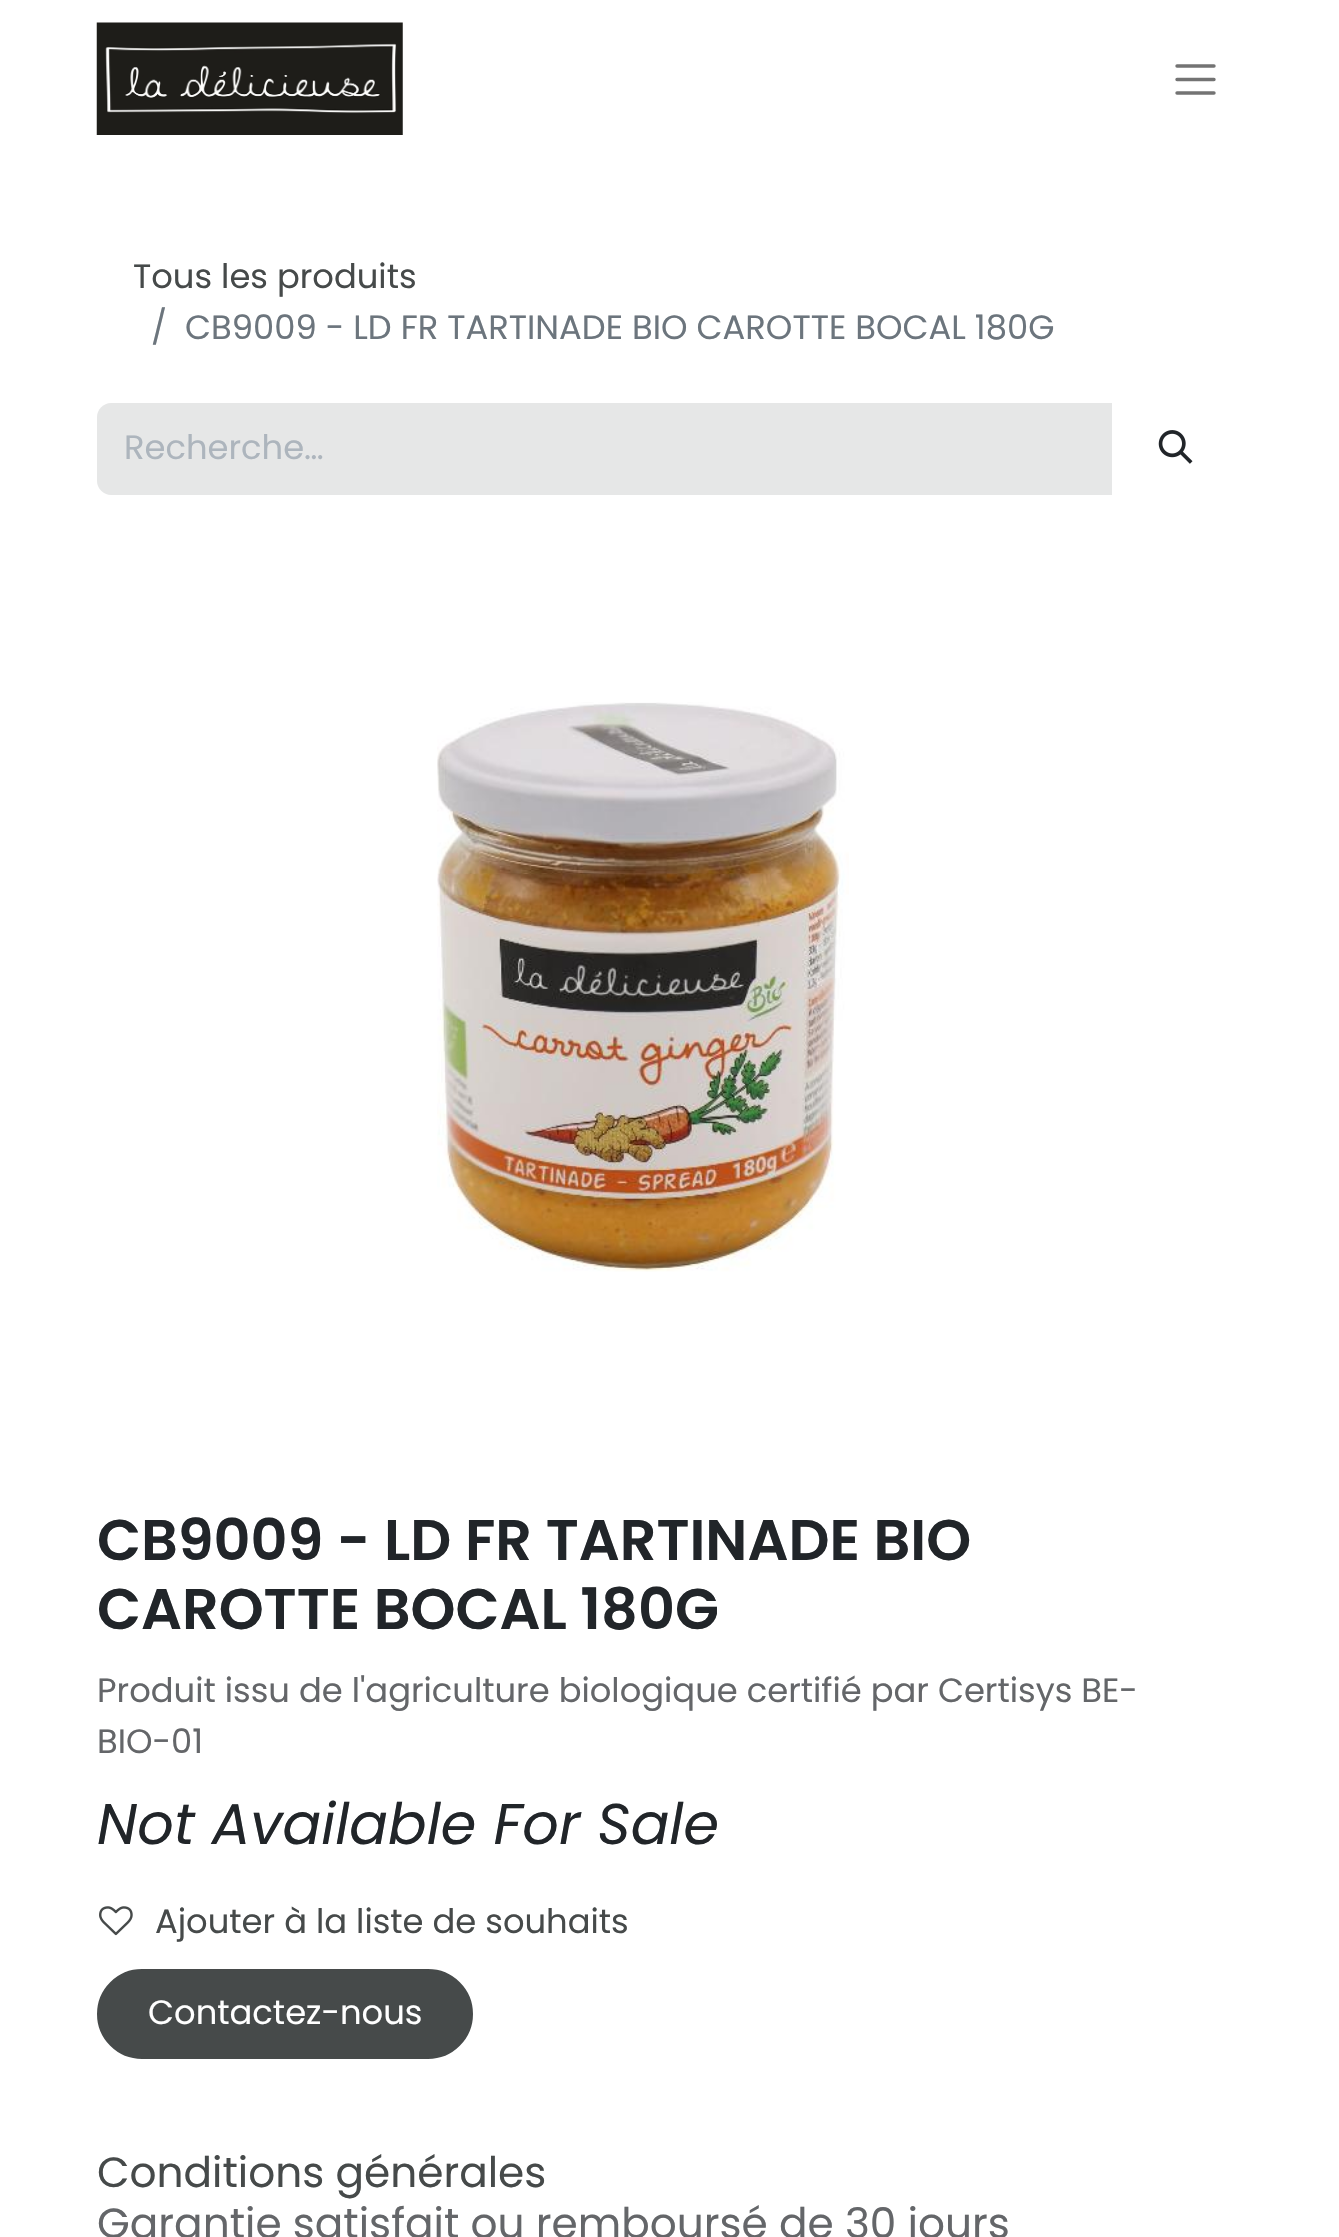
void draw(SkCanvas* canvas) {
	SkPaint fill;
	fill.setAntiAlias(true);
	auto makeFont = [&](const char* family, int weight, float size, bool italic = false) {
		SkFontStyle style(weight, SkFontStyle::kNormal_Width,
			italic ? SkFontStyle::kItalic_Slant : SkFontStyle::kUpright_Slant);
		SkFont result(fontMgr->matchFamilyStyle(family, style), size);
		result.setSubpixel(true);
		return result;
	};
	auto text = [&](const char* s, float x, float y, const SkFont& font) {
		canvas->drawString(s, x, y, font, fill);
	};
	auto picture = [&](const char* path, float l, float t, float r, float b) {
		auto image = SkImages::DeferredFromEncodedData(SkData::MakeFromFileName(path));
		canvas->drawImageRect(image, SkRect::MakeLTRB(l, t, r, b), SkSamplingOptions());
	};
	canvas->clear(0xFFFFFFFF);
	picture("image0.png", 96, 22, 403, 135);
	fill.setStyle(SkPaint::kStroke_Style);
	fill.setStrokeWidth(3.4f);
	fill.setStrokeCap(SkPaint::kRound_Cap);
	fill.setColor(0xFF737373);
	canvas->drawPath(SkPathBuilder().moveTo(1177, 66).lineTo(1214, 66).moveTo(1177, 79.5f).lineTo(1214, 79.5f).moveTo(1177, 93).lineTo(1214, 93).detach(), fill);
	fill.setStyle(SkPaint::kFill_Style);
	fill.setColor(0xFFE6E7E7);
	canvas->drawPath(SkPathBuilder().moveTo(111, 403).lineTo(1112, 403).lineTo(1112, 495).lineTo(111, 495).cubicTo(103.5f, 495, 97, 488.5f, 97, 481).lineTo(97, 417).cubicTo(97, 409.5f, 103.5f, 403, 111, 403).close().detach(), fill);
	picture("image1.png", 1158, 430, 1193, 464);
	picture("image2.png", 437, 702, 849, 1272);
	picture("image3.png", 99, 1906, 133, 1936);
	fill.setColor(0xFF464A4A);
	canvas->drawRoundRect(SkRect::MakeLTRB(98, 1970, 472, 2058), 44, 44, fill);
	fill.setStyle(SkPaint::kStroke_Style);
	fill.setStrokeWidth(2);
	fill.setStrokeCap(SkPaint::kButt_Cap);
	canvas->drawRoundRect(SkRect::MakeLTRB(98, 1970, 472, 2058), 44, 44, fill);
	auto font1 = makeFont("Poppins", 400, 33.75f);
	fill.setStyle(SkPaint::kFill_Style);
	text("Tous les produits", 133, 288, font1);
	fill.setColor(0xFF6C757D);
	text("/", 151, 339, font1);
	text("CB9009 - LD FR TARTINADE BIO CAROTTE BOCAL 180G", 185, 339, font1);
	fill.setColor(0xFFADB5BD);
	text("Recherche…", 124, 459, font1);
	auto font2 = makeFont("Poppins", 600, 57.25f);
	fill.setColor(0xFF212529);
	text("CB9009 - LD FR TARTINADE BIO", 97, 1560, font2);
	text("CAROTTE BOCAL 180G", 97, 1629, font2);
	fill.setColor(0xFF646669);
	text("Produit issu de l'agriculture biologique certifié par Certisys BE-", 97, 1702, font1);
	text("BIO-01", 97, 1753, font1);
	auto font3 = makeFont("Poppins", 400, 57.25f, true);
	fill.setColor(0xFF212529);
	text("Not Available For Sale", 97, 1844, font3);
	fill.setColor(0xFF464A4A);
	text("Ajouter à la liste de souhaits", 155, 1933, font1);
	fill.setColor(0xFFFFFFFF);
	text("Contactez-nous", 148, 2024, font1);
	auto font4 = makeFont("Poppins", 400, 42.2f);
	fill.setColor(0xFF464A4A);
	text("Conditions générales", 97, 2187, font4);
	fill.setColor(0xFF646669);
	text("Garantie satisfait ou remboursé de 30 jours", 97, 2238, font4);
}
